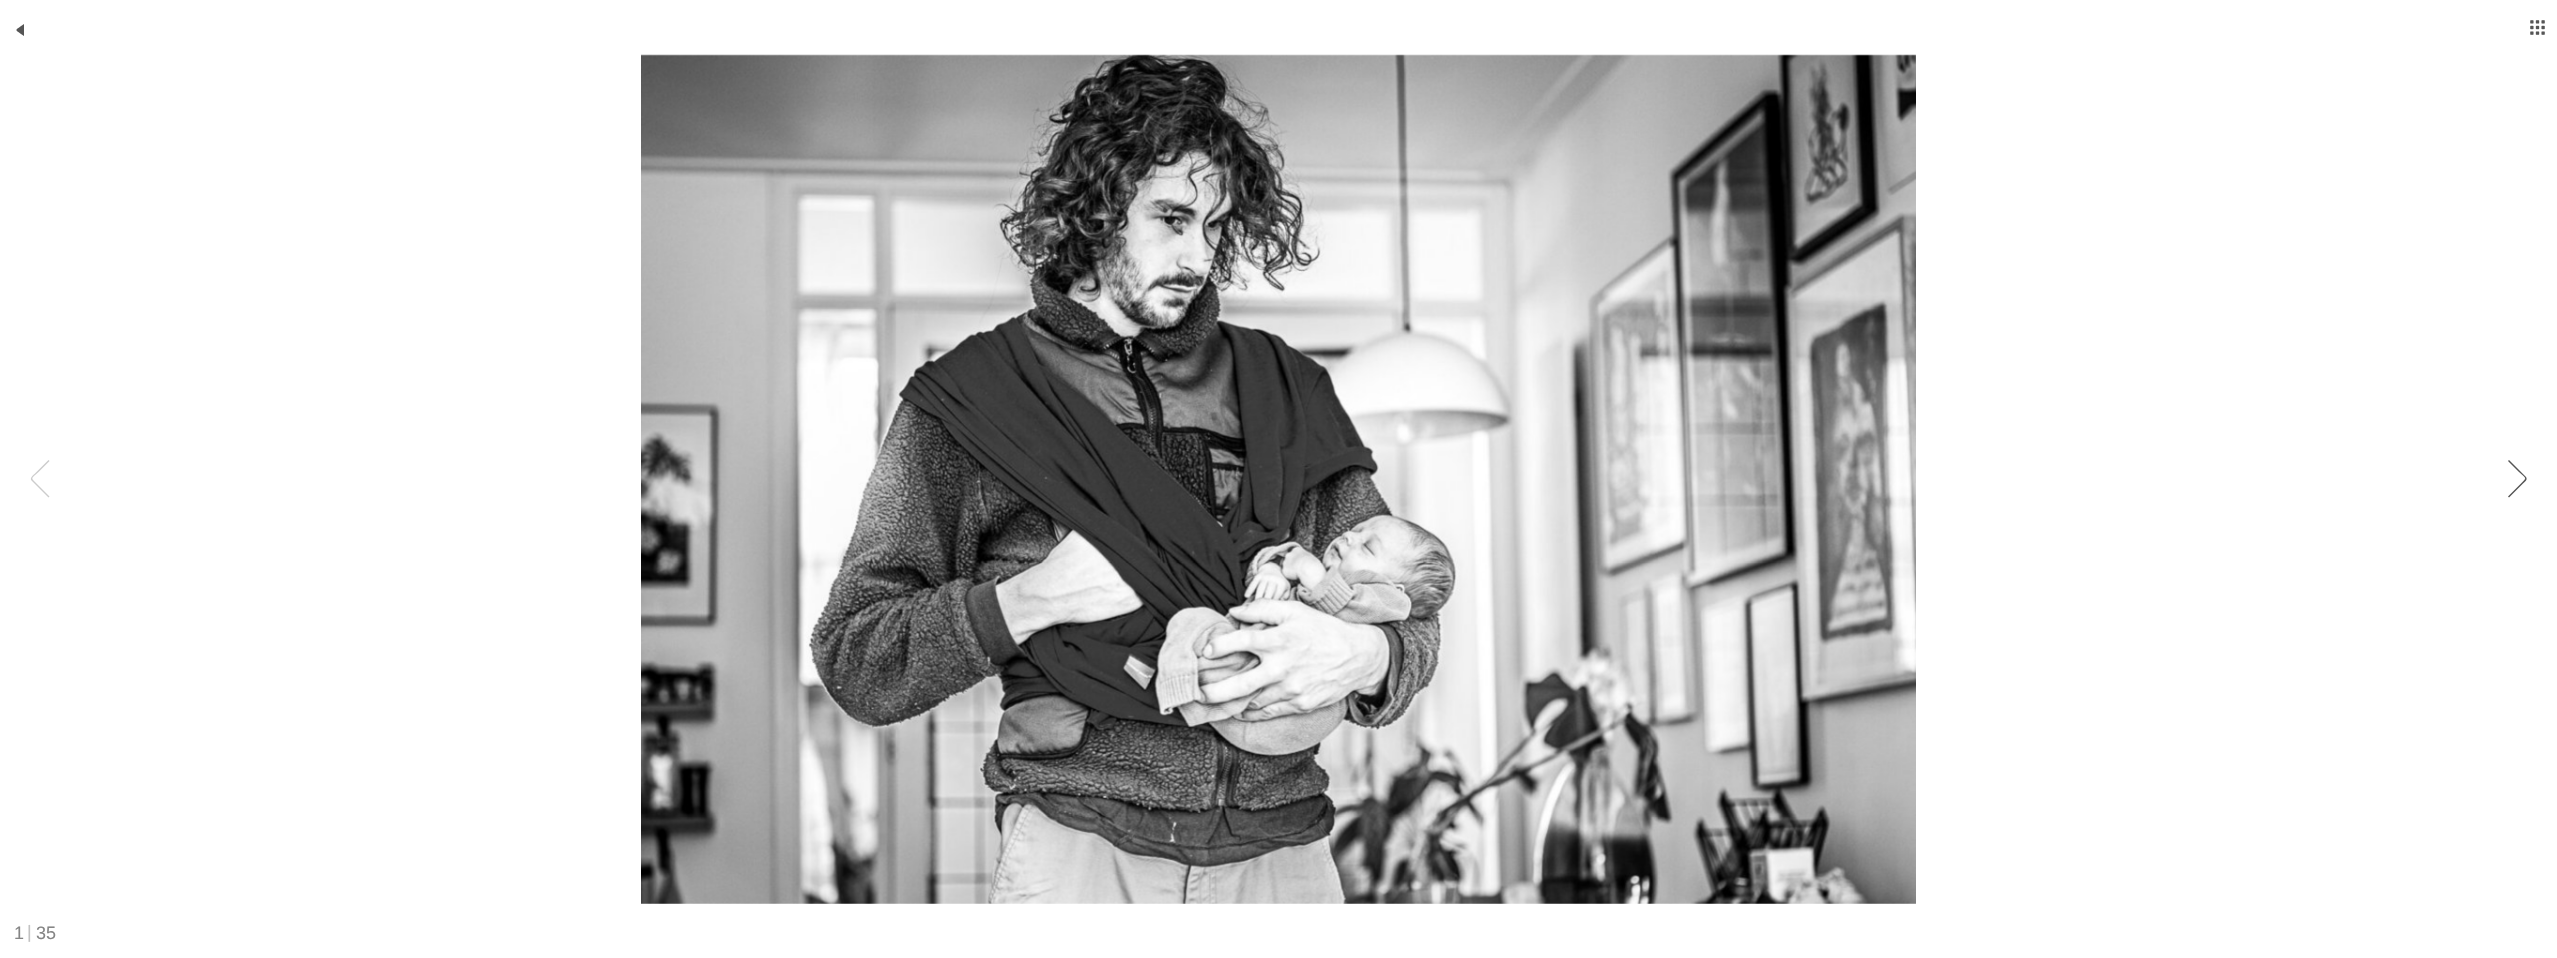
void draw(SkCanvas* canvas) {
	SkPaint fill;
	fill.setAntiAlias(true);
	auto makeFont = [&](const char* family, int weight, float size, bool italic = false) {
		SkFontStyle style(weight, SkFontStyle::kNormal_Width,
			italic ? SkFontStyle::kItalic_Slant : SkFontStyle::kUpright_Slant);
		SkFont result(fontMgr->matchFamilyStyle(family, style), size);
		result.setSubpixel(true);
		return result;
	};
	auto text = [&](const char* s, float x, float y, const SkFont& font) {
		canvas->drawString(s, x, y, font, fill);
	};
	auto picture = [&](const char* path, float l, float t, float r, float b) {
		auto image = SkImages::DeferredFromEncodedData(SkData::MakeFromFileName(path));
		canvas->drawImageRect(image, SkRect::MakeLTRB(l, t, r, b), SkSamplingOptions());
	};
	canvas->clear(0xFFFFFFFF);
	fill.setColor(0xFF555555);
	canvas->drawPath(SkPathBuilder().moveTo(24, 36).cubicTo(14, 28.5f, 14, 31.5f, 24, 24).close().detach(), fill);
	picture("image0.png", 2530, 20, 2545, 35);
	fill.setColor(0xFFCCCCCC);
	canvas->drawPath(SkPathBuilder().moveTo(48.5f, 497.5f).lineTo(31.5f, 480.5f).cubicTo(29.5f, 478, 33, 475.5f, 34.5f, 474).lineTo(48.5f, 460).lineTo(49.5f, 461).lineTo(38.5f, 472).cubicTo(32, 478.5f, 30, 477, 35.5f, 482.5f).lineTo(49.5f, 496.5f).close().detach(), fill);
	picture("image1.png", 641, 54, 1916, 904);
	fill.setColor(0xFF555555);
	canvas->drawPath(SkPathBuilder().moveTo(2509, 460).lineTo(2526, 477).cubicTo(2528, 480, 2524.5f, 482, 2523, 483.5f).lineTo(2509, 497.5f).lineTo(2508, 496.5f).lineTo(2522, 482.5f).cubicTo(2527.5f, 477, 2525.5f, 478.5f, 2519, 472).lineTo(2508, 461).close().detach(), fill);
	auto font1 = makeFont("Liberation Sans", 400, 18);
	fill.setColor(0xFF858585);
	text("1", 14, 939, font1);
	fill.setColor(0xFFC2C2C2);
	text("|", 27, 938, font1);
	fill.setColor(0xFF858585);
	text("35", 36, 939, font1);
}
